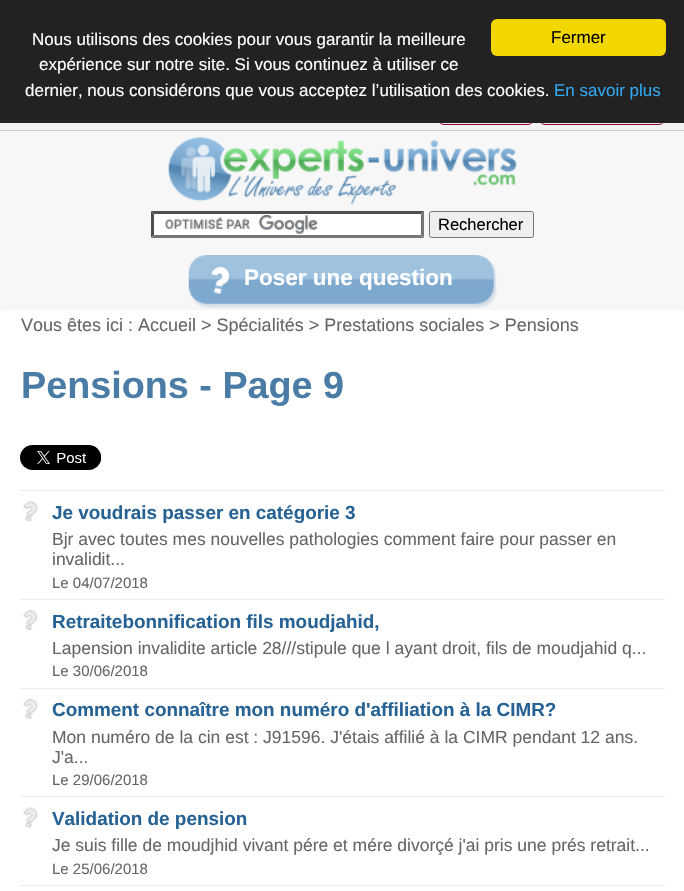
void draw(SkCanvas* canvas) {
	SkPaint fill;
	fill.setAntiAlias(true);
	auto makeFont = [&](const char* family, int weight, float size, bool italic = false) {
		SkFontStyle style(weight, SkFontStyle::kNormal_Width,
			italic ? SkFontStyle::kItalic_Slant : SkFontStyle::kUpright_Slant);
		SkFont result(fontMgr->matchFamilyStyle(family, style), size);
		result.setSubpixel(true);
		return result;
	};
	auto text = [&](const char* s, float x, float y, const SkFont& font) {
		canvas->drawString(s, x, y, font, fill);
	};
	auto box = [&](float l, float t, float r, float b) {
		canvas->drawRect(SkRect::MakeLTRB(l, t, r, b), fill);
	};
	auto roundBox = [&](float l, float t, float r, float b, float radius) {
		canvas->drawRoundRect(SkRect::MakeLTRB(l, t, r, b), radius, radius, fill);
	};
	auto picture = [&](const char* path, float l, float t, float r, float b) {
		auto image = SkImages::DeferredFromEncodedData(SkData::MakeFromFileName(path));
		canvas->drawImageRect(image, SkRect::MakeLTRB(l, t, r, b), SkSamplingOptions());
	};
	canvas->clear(0xFFF7F7F7);
	fill.setColor(0xFFF2F2F2);
	box(0, 123, 684, 130);
	canvas->save();
	canvas->clipPath(SkPathBuilder().moveTo(444, 89).lineTo(528, 89).cubicTo(531.5f, 89, 534, 91.5f, 534, 95).lineTo(534, 119).cubicTo(534, 122.5f, 531.5f, 125, 528, 125).lineTo(444, 125).cubicTo(440.5f, 125, 438, 122.5f, 438, 119).lineTo(438, 95).cubicTo(438, 91.5f, 440.5f, 89, 444, 89).close().detach(), true);
	{
		const SkColor colors[] = {0xFFF5F5F5, 0xFFEFEFEF};
		const float stops[] = {0.05f, 1};
		const SkPoint ends[] = {{439, 90}, {439, 124}};
		fill.setShader(SkGradientShader::MakeLinear(ends, colors, stops, 2, SkTileMode::kClamp));
		fill.setAlpha(255);
	}
	box(439, 123, 533, 124);
	canvas->restore();
	fill.setStyle(SkPaint::kStroke_Style);
	fill.setStrokeWidth(1);
	fill.setShader(nullptr);
	fill.setColor(0xFF990033);
	canvas->drawRoundRect(SkRect::MakeLTRB(438.5f, 89.5f, 533.5f, 124.5f), 5.5f, 5.5f, fill);
	canvas->save();
	canvas->clipPath(SkPathBuilder().moveTo(545, 89).lineTo(659, 89).cubicTo(662.5f, 89, 665, 91.5f, 665, 95).lineTo(665, 119).cubicTo(665, 122.5f, 662.5f, 125, 659, 125).lineTo(545, 125).cubicTo(541.5f, 125, 539, 122.5f, 539, 119).lineTo(539, 95).cubicTo(539, 91.5f, 541.5f, 89, 545, 89).close().detach(), true);
	fill.setStyle(SkPaint::kFill_Style);
	{
		const SkColor colors[] = {0xFFF5F5F5, 0xFFEFEFEF};
		const float stops[] = {0.05f, 1};
		const SkPoint ends[] = {{540, 90}, {540, 124}};
		fill.setShader(SkGradientShader::MakeLinear(ends, colors, stops, 2, SkTileMode::kClamp));
		fill.setAlpha(255);
	}
	box(540, 123, 664, 124);
	canvas->restore();
	fill.setStyle(SkPaint::kStroke_Style);
	fill.setShader(nullptr);
	fill.setColor(0xFF990033);
	canvas->drawRoundRect(SkRect::MakeLTRB(539.5f, 89.5f, 664.5f, 124.5f), 5.5f, 5.5f, fill);
	fill.setStyle(SkPaint::kFill_Style);
	fill.setColor(0xFF222222);
	box(0, 0, 684, 123);
	fill.setColor(0xFFF1D600);
	roundBox(491, 19, 666, 56, 6);
	fill.setColor(0xFFCCCCCC);
	box(0, 130, 684, 131);
	picture("image0.png", 168, 137, 517, 205);
	fill.setColor(0xFFFFFFFF);
	box(151, 211, 424, 238);
	picture("image1.png", 165, 215, 318, 234);
	fill.setColor(0xFF4F4F4F);
	canvas->drawPath(SkPathBuilder().moveTo(151, 211).lineTo(424, 211).lineTo(421, 214).lineTo(154, 214).close().detach(), fill);
	fill.setColor(0xFF767676);
	canvas->drawPath(SkPathBuilder().moveTo(424, 211).lineTo(424, 237.5f).lineTo(421, 235).lineTo(421, 214).close().detach(), fill);
	canvas->drawPath(SkPathBuilder().moveTo(424, 238).lineTo(151, 238).lineTo(154, 235).lineTo(421, 235).close().detach(), fill);
	fill.setColor(0xFF4F4F4F);
	canvas->drawPath(SkPathBuilder().moveTo(151, 237.5f).lineTo(151, 211).lineTo(154, 214).lineTo(154, 235).close().detach(), fill);
	fill.setColor(0xFFEFEFEF);
	canvas->drawRoundRect(SkRect::MakeLTRB(429.5f, 211.5f, 533.5f, 237.5f), 2, 2, fill);
	fill.setStyle(SkPaint::kStroke_Style);
	fill.setColor(0xFF767676);
	canvas->drawRoundRect(SkRect::MakeLTRB(429.5f, 211.5f, 533.5f, 237.5f), 2, 2, fill);
	picture("image2.png", 188, 255, 497, 310);
	fill.setStyle(SkPaint::kFill_Style);
	fill.setColor(0xFFFFFFFF);
	roundBox(0, 310, 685, 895, 4);
	picture("image3.png", 20, 445, 102, 470);
	fill.setColor(0xFFEEEEEE);
	box(20, 490, 665, 491);
	picture("image4.png", 22, 501, 38, 522);
	box(20, 599, 665, 600);
	picture("image5.png", 22, 610, 38, 630);
	box(20, 688, 665, 689);
	picture("image6.png", 22, 698, 38, 719);
	box(20, 796, 665, 797);
	picture("image7.png", 22, 807, 38, 828);
	box(20, 885, 665, 886);
	auto font1 = makeFont("Liberation Sans", 400, 17);
	fill.setColor(0xFF000000);
	text("Fermer", 551, 43, font1);
	fill.setColor(0xFFFFFFFF);
	text("Nous utilisons des cookies pour vous garantir la meilleure", 32, 45, font1);
	text("expérience sur notre site. Si vous continuez à utiliser ce", 39, 70, font1);
	text("dernier, nous considérons que vous acceptez l’utilisation des cookies.", 25, 96, font1);
	fill.setColor(0xFF31A8F0);
	text("En savoir plus", 554, 96, font1);
	auto font2 = makeFont("Liberation Sans", 400, 16.5f);
	fill.setColor(0xFF000000);
	text("Rechercher", 438, 230, font2);
	auto font3 = makeFont("Liberation Sans", 700, 22.5f);
	fill.setColor(0xFFFFFFFF);
	text("Poser une question", 244, 285, font3);
	auto font4 = makeFont("Liberation Sans", 400, 18);
	fill.setColor(0xFF666666);
	text("Vous êtes ici : Accueil > Spécialités > Prestations sociales > Pensions", 21, 331, font4);
	auto font5 = makeFont("Liberation Sans", 700, 37.75f);
	fill.setColor(0xFF4A7CA6);
	text("Pensions - Page 9", 21, 398, font5);
	auto font6 = makeFont("Liberation Sans", 700, 18.9f);
	fill.setColor(0xFF266294);
	text("Je voudrais passer en catégorie 3", 52, 519, font6);
	auto font7 = makeFont("Liberation Sans", 400, 17.5f);
	fill.setColor(0xFF666666);
	text("Bjr avec toutes mes nouvelles pathologies comment faire pour passer en", 52, 545, font7);
	text("invalidit...", 52, 565, font7);
	auto font8 = makeFont("Liberation Sans", 400, 15);
	text("Le 04/07/2018", 52, 588, font8);
	fill.setColor(0xFF266294);
	text("Retraitebonnification fils moudjahid,", 52, 628, font6);
	fill.setColor(0xFF666666);
	text("Lapension invalidite article 28///stipule que l ayant droit, fils de moudjahid q...", 52, 654, font7);
	text("Le 30/06/2018", 52, 676, font8);
	fill.setColor(0xFF266294);
	text("Comment connaître mon numéro d'affiliation à la CIMR?", 52, 716, font6);
	fill.setColor(0xFF666666);
	text("Mon numéro de la cin est : J91596. J'étais affilié à la CIMR pendant 12 ans.", 52, 743, font7);
	text("J'a...", 52, 763, font7);
	text("Le 29/06/2018", 52, 785, font8);
	fill.setColor(0xFF266294);
	text("Validation de pension", 52, 825, font6);
	fill.setColor(0xFF666666);
	text("Je suis fille de moudjhid vivant pére et mére divorçé j'ai pris une prés retrait...", 52, 851, font7);
	text("Le 25/06/2018", 52, 874, font8);
}
